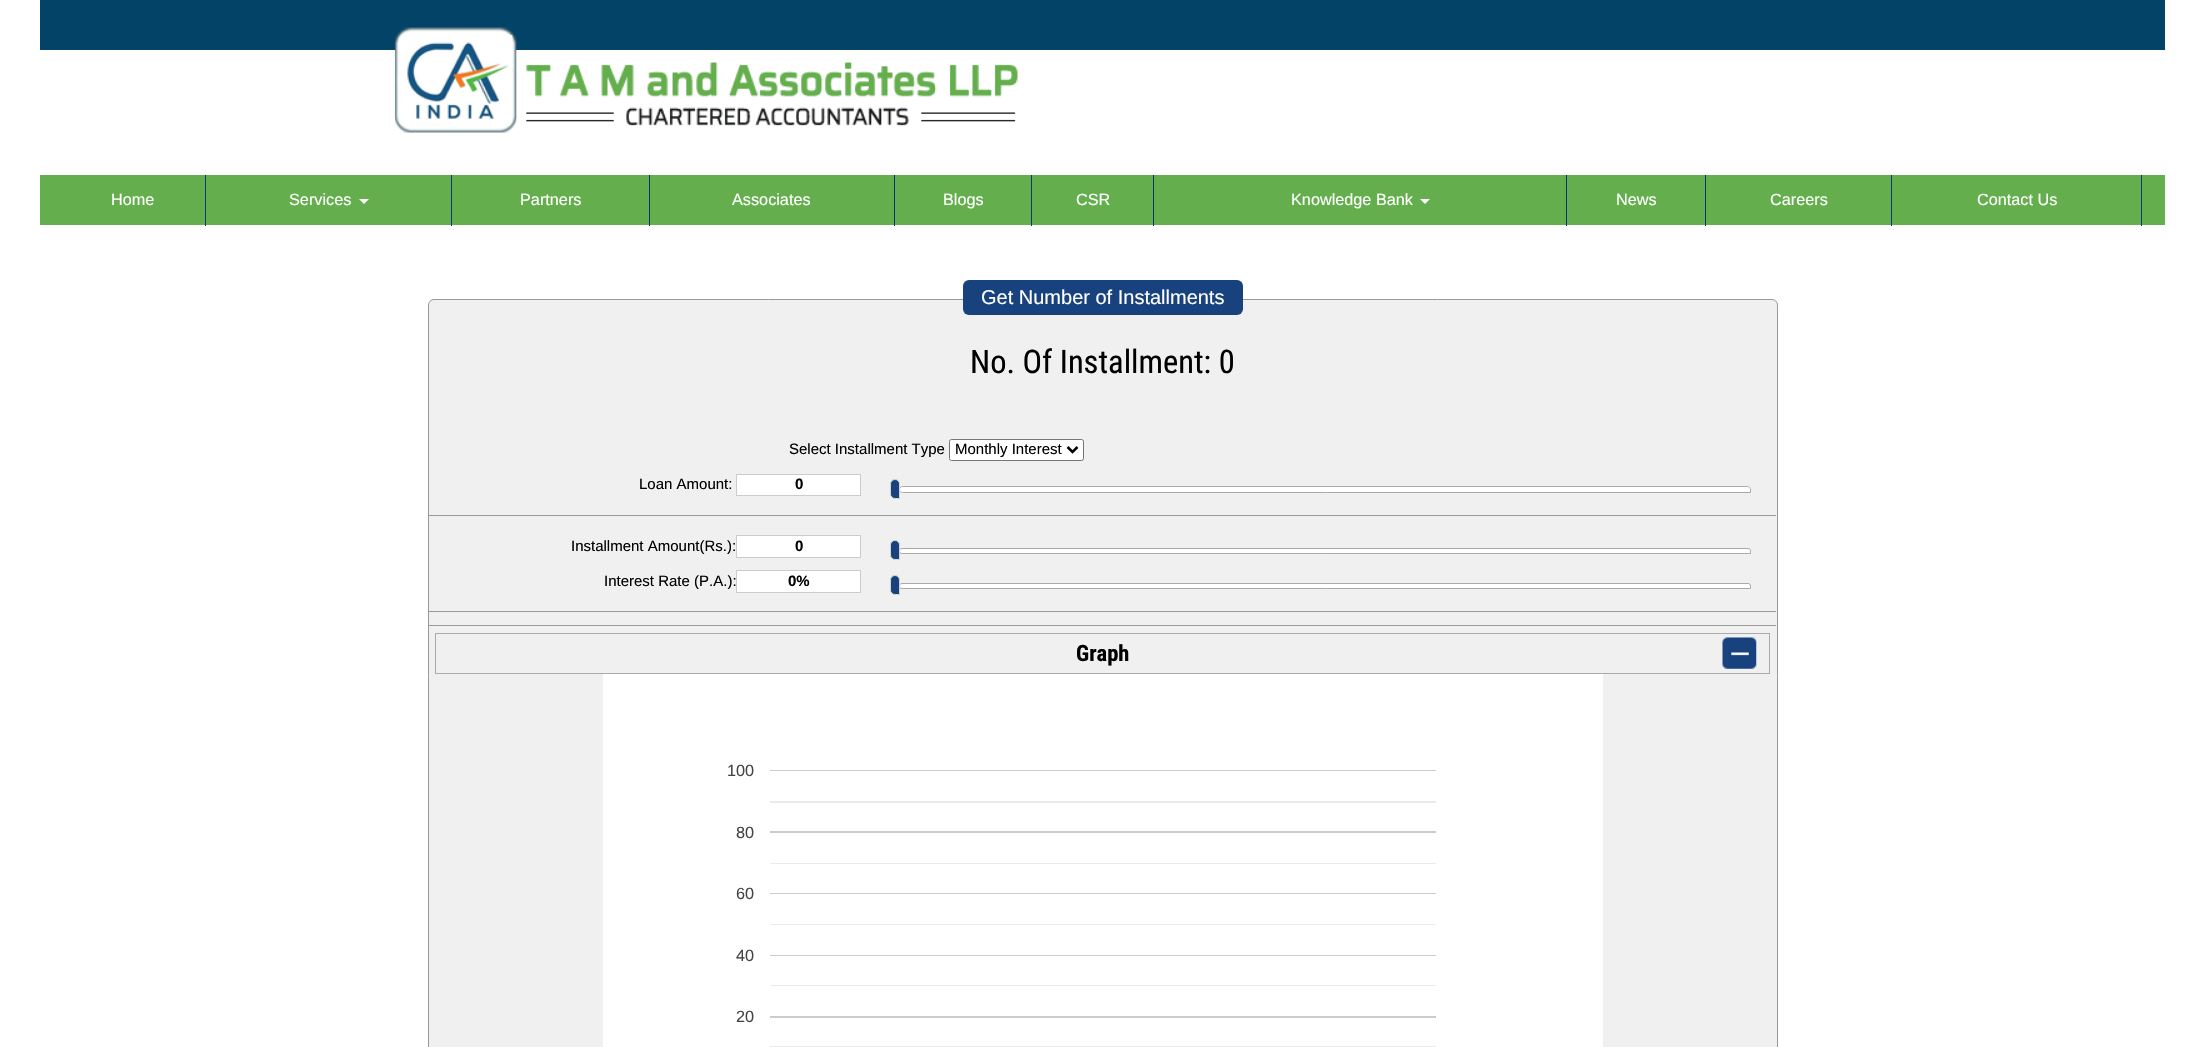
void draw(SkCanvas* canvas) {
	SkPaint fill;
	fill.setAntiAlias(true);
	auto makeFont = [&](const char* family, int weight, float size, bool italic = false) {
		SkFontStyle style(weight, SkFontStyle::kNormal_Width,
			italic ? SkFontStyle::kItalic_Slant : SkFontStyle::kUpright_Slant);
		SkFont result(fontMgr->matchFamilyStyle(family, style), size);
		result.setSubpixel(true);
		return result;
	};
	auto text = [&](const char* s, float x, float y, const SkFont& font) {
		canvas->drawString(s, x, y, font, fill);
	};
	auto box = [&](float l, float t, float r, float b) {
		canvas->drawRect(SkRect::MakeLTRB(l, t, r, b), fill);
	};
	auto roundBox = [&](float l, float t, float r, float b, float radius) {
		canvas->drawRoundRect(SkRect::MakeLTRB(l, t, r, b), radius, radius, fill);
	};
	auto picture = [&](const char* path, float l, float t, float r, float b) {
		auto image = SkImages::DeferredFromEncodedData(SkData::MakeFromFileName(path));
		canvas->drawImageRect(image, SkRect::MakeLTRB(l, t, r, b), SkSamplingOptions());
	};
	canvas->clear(0xFFFFFFFF);
	fill.setColor(0xFF034367);
	box(40, 0, 2165, 50);
	picture("image0.png", 394, 27, 1018, 133);
	fill.setColor(0xFF64AE4D);
	box(40, 175, 2165, 225);
	fill.setColor(0xFF0C3675);
	box(205, 175, 206, 226);
	box(451, 175, 452, 226);
	fill.setColor(0xFFFFFFFF);
	canvas->drawPath(SkPathBuilder().moveTo(359, 199).lineTo(369, 199).lineTo(364, 204).close().detach(), fill);
	fill.setColor(0xFF0C3675);
	box(649, 175, 650, 226);
	box(894, 175, 895, 226);
	box(1031, 175, 1032, 226);
	box(1153, 175, 1154, 226);
	box(1566, 175, 1567, 226);
	fill.setColor(0xFFFFFFFF);
	canvas->drawPath(SkPathBuilder().moveTo(1420, 199).lineTo(1430, 199).lineTo(1425, 204).close().detach(), fill);
	fill.setColor(0xFF0C3675);
	box(1705, 175, 1706, 226);
	box(1891, 175, 1892, 226);
	box(2141, 175, 2142, 226);
	fill.setColor(0xFFF0F0F0);
	canvas->drawRoundRect(SkRect::MakeLTRB(428.5f, 299.5f, 1777.5f, 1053.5f), 5.5f, 5.5f, fill);
	fill.setStyle(SkPaint::kStroke_Style);
	fill.setStrokeWidth(1);
	fill.setColor(0xFF999999);
	canvas->drawRoundRect(SkRect::MakeLTRB(428.5f, 299.5f, 1777.5f, 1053.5f), 5.5f, 5.5f, fill);
	fill.setStyle(SkPaint::kFill_Style);
	fill.setColor(0xFF18427D);
	roundBox(963, 280, 1243, 315, 6);
	fill.setColor(0xFF999999);
	box(429, 625, 1776, 626);
	box(429, 515, 1776, 516);
	fill.setColor(0xFFFFFFFF);
	canvas->drawRoundRect(SkRect::MakeLTRB(949.5f, 439.5f, 1083.5f, 460.5f), 2, 2, fill);
	fill.setStyle(SkPaint::kStroke_Style);
	fill.setColor(0xFF767676);
	canvas->drawRoundRect(SkRect::MakeLTRB(949.5f, 439.5f, 1083.5f, 460.5f), 2, 2, fill);
	fill.setStrokeWidth(2.5f);
	fill.setColor(0xFF000000);
	canvas->drawPath(SkPathBuilder().moveTo(1067.5f, 447).lineTo(1072.5f, 452).lineTo(1077.5f, 447).detach(), fill);
	fill.setStyle(SkPaint::kFill_Style);
	fill.setColor(0xFFFFFFFF);
	canvas->drawRect(SkRect::MakeLTRB(736.5f, 474.5f, 860.5f, 495.5f), fill);
	fill.setStyle(SkPaint::kStroke_Style);
	fill.setStrokeWidth(1);
	fill.setColor(0xFFCCCCCC);
	canvas->drawRect(SkRect::MakeLTRB(736.5f, 474.5f, 860.5f, 495.5f), fill);
	fill.setStyle(SkPaint::kFill_Style);
	fill.setColor(0xFFFFFFFF);
	canvas->drawPath(SkPathBuilder().moveTo(902.5f, 486.5f).lineTo(1747.5f, 486.5f).cubicTo(1749, 486.5f, 1750.5f, 488, 1750.5f, 489.5f).lineTo(1750.5f, 492.5f).lineTo(902.5f, 492.5f).cubicTo(901, 492.5f, 899.5f, 491, 899.5f, 489.5f).cubicTo(899.5f, 488, 901, 486.5f, 902.5f, 486.5f).close().detach(), fill);
	fill.setStyle(SkPaint::kStroke_Style);
	fill.setColor(0xFFAAAAAA);
	canvas->drawPath(SkPathBuilder().moveTo(902.5f, 486.5f).lineTo(1747.5f, 486.5f).cubicTo(1749, 486.5f, 1750.5f, 488, 1750.5f, 489.5f).lineTo(1750.5f, 492.5f).lineTo(902.5f, 492.5f).cubicTo(901, 492.5f, 899.5f, 491, 899.5f, 489.5f).cubicTo(899.5f, 488, 901, 486.5f, 902.5f, 486.5f).close().detach(), fill);
	fill.setStyle(SkPaint::kFill_Style);
	fill.setColor(0xFF18427D);
	canvas->drawPath(SkPathBuilder().moveTo(895, 479.5f).cubicTo(897.5f, 479.5f, 899.5f, 481.5f, 899.5f, 484).lineTo(899.5f, 498.5f).lineTo(895, 498.5f).cubicTo(892.5f, 498.5f, 890.5f, 496.5f, 890.5f, 494).lineTo(890.5f, 484).cubicTo(890.5f, 481.5f, 892.5f, 479.5f, 895, 479.5f).close().detach(), fill);
	fill.setStyle(SkPaint::kStroke_Style);
	fill.setColor(0xFFD3D3D3);
	canvas->drawPath(SkPathBuilder().moveTo(895, 479.5f).cubicTo(897.5f, 479.5f, 899.5f, 481.5f, 899.5f, 484).lineTo(899.5f, 498.5f).lineTo(895, 498.5f).cubicTo(892.5f, 498.5f, 890.5f, 496.5f, 890.5f, 494).lineTo(890.5f, 484).cubicTo(890.5f, 481.5f, 892.5f, 479.5f, 895, 479.5f).close().detach(), fill);
	fill.setStyle(SkPaint::kFill_Style);
	fill.setColor(0xFF999999);
	box(429, 611, 1776, 612);
	fill.setColor(0xFFFFFFFF);
	canvas->drawRect(SkRect::MakeLTRB(736.5f, 535.5f, 860.5f, 557.5f), fill);
	fill.setStyle(SkPaint::kStroke_Style);
	fill.setColor(0xFFCCCCCC);
	canvas->drawRect(SkRect::MakeLTRB(736.5f, 535.5f, 860.5f, 557.5f), fill);
	fill.setStyle(SkPaint::kFill_Style);
	fill.setColor(0xFFFFFFFF);
	canvas->drawPath(SkPathBuilder().moveTo(902, 548.5f).lineTo(1748, 548.5f).cubicTo(1749.5f, 548.5f, 1750.5f, 549.5f, 1750.5f, 551).lineTo(1750.5f, 553.5f).lineTo(902, 553.5f).cubicTo(900.5f, 553.5f, 899.5f, 552.5f, 899.5f, 551).cubicTo(899.5f, 549.5f, 900.5f, 548.5f, 902, 548.5f).close().detach(), fill);
	fill.setStyle(SkPaint::kStroke_Style);
	fill.setColor(0xFFAAAAAA);
	canvas->drawPath(SkPathBuilder().moveTo(902, 548.5f).lineTo(1748, 548.5f).cubicTo(1749.5f, 548.5f, 1750.5f, 549.5f, 1750.5f, 551).lineTo(1750.5f, 553.5f).lineTo(902, 553.5f).cubicTo(900.5f, 553.5f, 899.5f, 552.5f, 899.5f, 551).cubicTo(899.5f, 549.5f, 900.5f, 548.5f, 902, 548.5f).close().detach(), fill);
	fill.setStyle(SkPaint::kFill_Style);
	fill.setColor(0xFF18427D);
	canvas->drawPath(SkPathBuilder().moveTo(895, 540.5f).cubicTo(897.5f, 540.5f, 899.5f, 542.5f, 899.5f, 545).lineTo(899.5f, 559.5f).lineTo(895, 559.5f).cubicTo(892.5f, 559.5f, 890.5f, 557.5f, 890.5f, 555).lineTo(890.5f, 545).cubicTo(890.5f, 542.5f, 892.5f, 540.5f, 895, 540.5f).close().detach(), fill);
	fill.setStyle(SkPaint::kStroke_Style);
	fill.setColor(0xFFD3D3D3);
	canvas->drawPath(SkPathBuilder().moveTo(895, 540.5f).cubicTo(897.5f, 540.5f, 899.5f, 542.5f, 899.5f, 545).lineTo(899.5f, 559.5f).lineTo(895, 559.5f).cubicTo(892.5f, 559.5f, 890.5f, 557.5f, 890.5f, 555).lineTo(890.5f, 545).cubicTo(890.5f, 542.5f, 892.5f, 540.5f, 895, 540.5f).close().detach(), fill);
	fill.setStyle(SkPaint::kFill_Style);
	fill.setColor(0xFFFFFFFF);
	canvas->drawRect(SkRect::MakeLTRB(736.5f, 570.5f, 860.5f, 592.5f), fill);
	fill.setStyle(SkPaint::kStroke_Style);
	fill.setColor(0xFFCCCCCC);
	canvas->drawRect(SkRect::MakeLTRB(736.5f, 570.5f, 860.5f, 592.5f), fill);
	fill.setStyle(SkPaint::kFill_Style);
	fill.setColor(0xFFFFFFFF);
	canvas->drawPath(SkPathBuilder().moveTo(902, 583.5f).lineTo(1748, 583.5f).cubicTo(1749.5f, 583.5f, 1750.5f, 584.5f, 1750.5f, 586).lineTo(1750.5f, 588.5f).lineTo(902, 588.5f).cubicTo(900.5f, 588.5f, 899.5f, 587.5f, 899.5f, 586).cubicTo(899.5f, 584.5f, 900.5f, 583.5f, 902, 583.5f).close().detach(), fill);
	fill.setStyle(SkPaint::kStroke_Style);
	fill.setColor(0xFFAAAAAA);
	canvas->drawPath(SkPathBuilder().moveTo(902, 583.5f).lineTo(1748, 583.5f).cubicTo(1749.5f, 583.5f, 1750.5f, 584.5f, 1750.5f, 586).lineTo(1750.5f, 588.5f).lineTo(902, 588.5f).cubicTo(900.5f, 588.5f, 899.5f, 587.5f, 899.5f, 586).cubicTo(899.5f, 584.5f, 900.5f, 583.5f, 902, 583.5f).close().detach(), fill);
	fill.setStyle(SkPaint::kFill_Style);
	fill.setColor(0xFF18427D);
	canvas->drawPath(SkPathBuilder().moveTo(895, 575.5f).cubicTo(897.5f, 575.5f, 899.5f, 577.5f, 899.5f, 580).lineTo(899.5f, 594.5f).lineTo(895, 594.5f).cubicTo(892.5f, 594.5f, 890.5f, 592.5f, 890.5f, 590).lineTo(890.5f, 580).cubicTo(890.5f, 577.5f, 892.5f, 575.5f, 895, 575.5f).close().detach(), fill);
	fill.setStyle(SkPaint::kStroke_Style);
	fill.setColor(0xFFD3D3D3);
	canvas->drawPath(SkPathBuilder().moveTo(895, 575.5f).cubicTo(897.5f, 575.5f, 899.5f, 577.5f, 899.5f, 580).lineTo(899.5f, 594.5f).lineTo(895, 594.5f).cubicTo(892.5f, 594.5f, 890.5f, 592.5f, 890.5f, 590).lineTo(890.5f, 580).cubicTo(890.5f, 577.5f, 892.5f, 575.5f, 895, 575.5f).close().detach(), fill);
	picture("image1.png", 1722, 637, 1757, 669);
	fill.setColor(0xFFAAAAAA);
	canvas->drawRect(SkRect::MakeLTRB(435.5f, 633.5f, 1769.5f, 673.5f), fill);
	picture("image2.png", 603, 674, 1603, 1047);
	auto font1 = makeFont("Liberation Sans", 400, 16.25f);
	fill.setStyle(SkPaint::kFill_Style);
	fill.setColor(0xFFFFFFFF);
	text("Home", 111, 205, font1);
	text("Services", 289, 205, font1);
	text("Partners", 520, 205, font1);
	text("Associates", 732, 205, font1);
	text("Blogs", 943, 205, font1);
	text("CSR", 1076, 205, font1);
	text("Knowledge Bank", 1291, 205, font1);
	text("News", 1616, 205, font1);
	text("Careers", 1770, 205, font1);
	text("Contact Us", 1977, 205, font1);
	auto font2 = makeFont("Liberation Sans", 400, 20);
	text("Get Number of Installments", 981, 304, font2);
	auto font3 = makeFont("Roboto Condensed", 400, 32.5f);
	fill.setColor(0xFF000000);
	text("No. Of Installment: 0", 970, 373, font3);
	auto font4 = makeFont("Liberation Sans", 400, 15);
	text("Select Installment Type", 789, 454, font4);
	text("Monthly Interest", 955, 454, font4);
	text("Loan Amount:", 639, 489, font4);
	auto font5 = makeFont("Liberation Sans", 700, 15);
	text("0", 795, 489, font5);
	text("Installment Amount(Rs.):", 571, 551, font4);
	text("0", 795, 551, font5);
	text("Interest Rate (P.A.):", 604, 586, font4);
	text("0%", 788, 586, font5);
	auto font6 = makeFont("Roboto Condensed", 700, 22.5f);
	text("Graph", 1076, 661, font6);
	fill.setColor(0xFF444444);
	text("100", 727, 776, font1);
	text("80", 736, 838, font1);
	text("60", 736, 899, font1);
	text("40", 736, 961, font1);
	text("20", 736, 1022, font1);
}
